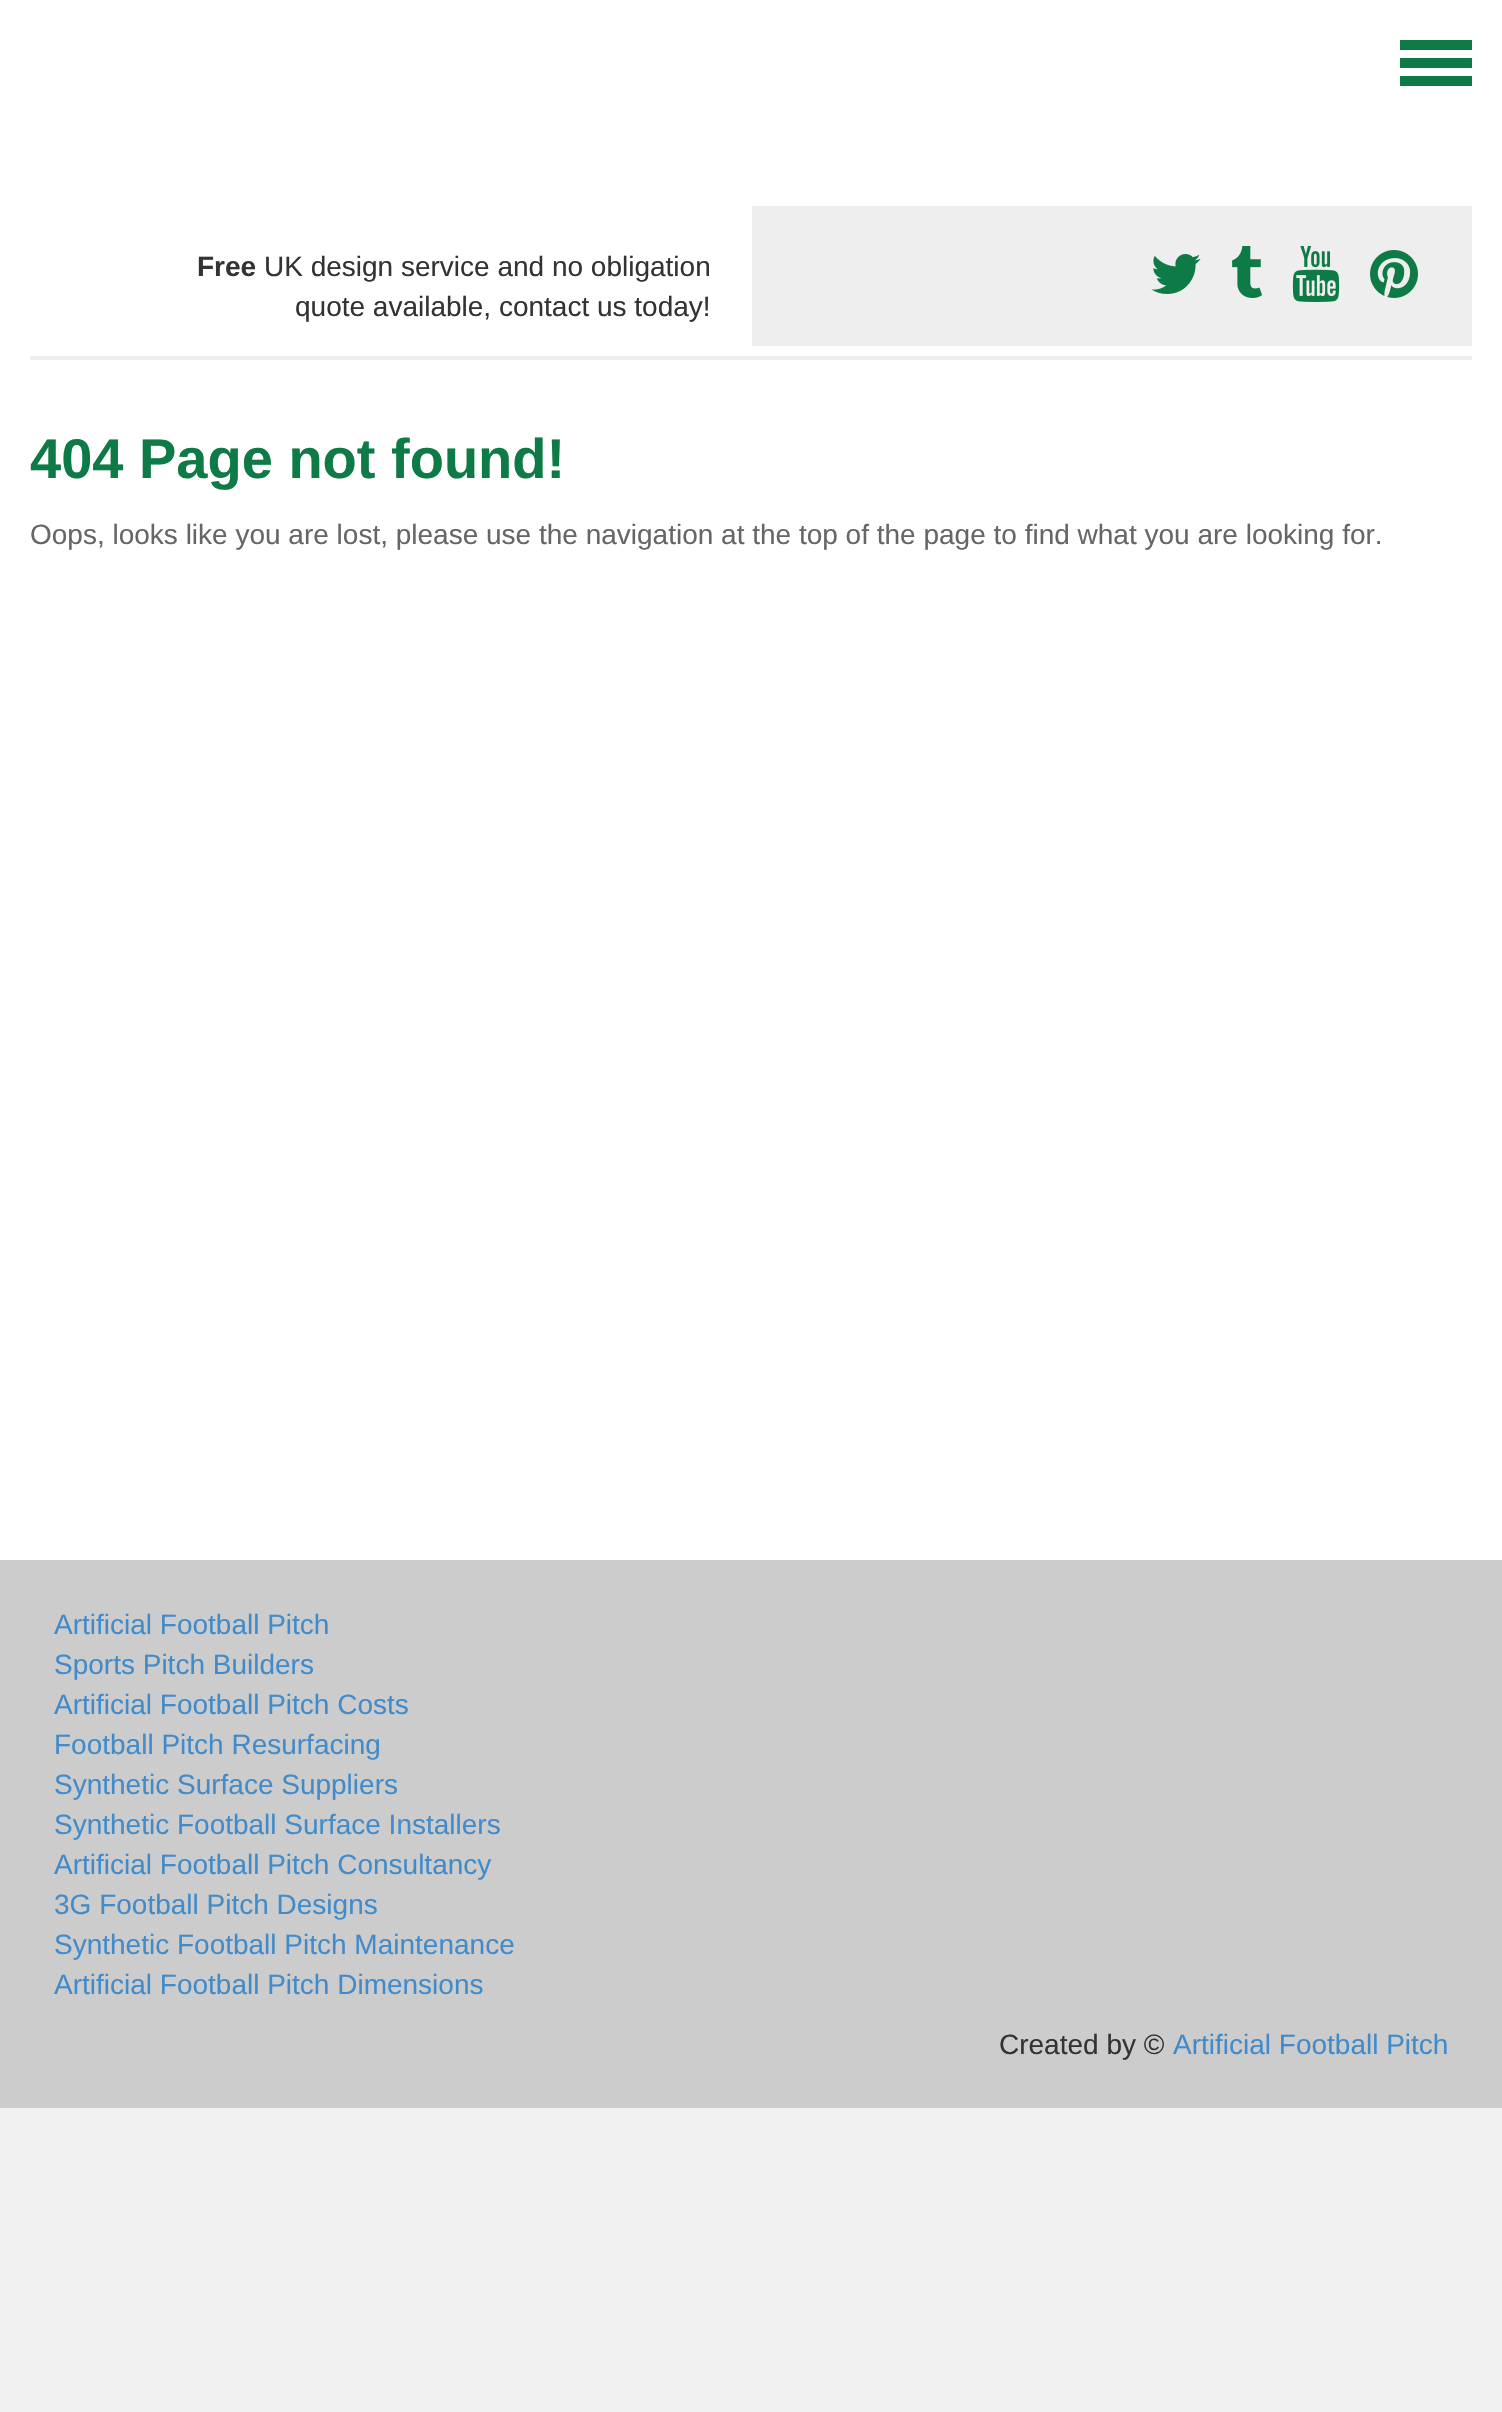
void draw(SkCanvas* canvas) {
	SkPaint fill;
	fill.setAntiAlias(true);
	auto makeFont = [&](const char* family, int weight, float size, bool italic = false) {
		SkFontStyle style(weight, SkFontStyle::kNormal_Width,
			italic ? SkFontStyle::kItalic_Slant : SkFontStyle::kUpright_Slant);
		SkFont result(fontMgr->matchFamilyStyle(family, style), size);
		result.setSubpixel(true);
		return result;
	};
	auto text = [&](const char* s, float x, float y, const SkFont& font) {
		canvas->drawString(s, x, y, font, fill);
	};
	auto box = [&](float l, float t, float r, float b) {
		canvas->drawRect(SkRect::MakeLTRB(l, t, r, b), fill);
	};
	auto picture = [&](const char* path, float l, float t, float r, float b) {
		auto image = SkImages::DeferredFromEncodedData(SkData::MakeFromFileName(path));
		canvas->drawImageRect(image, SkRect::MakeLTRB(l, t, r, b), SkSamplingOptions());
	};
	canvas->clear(0xFFF1F1F1);
	fill.setColor(0xFFFFFFFF);
	box(0, 0, 1502, 1560);
	fill.setColor(0xFFEEEEEE);
	box(30, 356, 1472, 360);
	fill.setColor(0xFF0E7A46);
	box(1400, 40, 1472, 50);
	box(1400, 58, 1472, 68);
	box(1400, 76, 1472, 86);
	fill.setColor(0xFFEEEEEE);
	box(752, 206, 1472, 346);
	picture("image0.png", 1151, 254, 1201, 294);
	picture("image1.png", 1232, 246, 1262, 298);
	picture("image2.png", 1292, 246, 1340, 302);
	picture("image3.png", 1370, 250, 1418, 298);
	fill.setColor(0xFFCCCCCC);
	box(0, 1560, 1502, 2108);
	auto font1 = makeFont("Liberation Sans", 700, 28);
	fill.setColor(0xFF333333);
	text("Free", 197, 276, font1);
	auto font2 = makeFont("Liberation Sans", 400, 28);
	text("UK design service and no obligation", 264, 276, font2);
	text("quote available, contact us today!", 295, 316, font2);
	auto font3 = makeFont("Liberation Sans", 700, 56);
	fill.setColor(0xFF0E7A46);
	text("404 Page not found!", 30, 478, font3);
	fill.setColor(0xFF666666);
	text("Oops, looks like you are lost, please use the navigation at the top of the page to find what you are looking for.", 30, 544, font2);
	fill.setColor(0xFF428BCA);
	text("Artificial Football Pitch", 54, 1634, font2);
	text("Sports Pitch Builders", 54, 1674, font2);
	text("Artificial Football Pitch Costs", 54, 1714, font2);
	text("Football Pitch Resurfacing", 54, 1754, font2);
	text("Synthetic Surface Suppliers", 54, 1794, font2);
	text("Synthetic Football Surface Installers", 54, 1834, font2);
	text("Artificial Football Pitch Consultancy", 54, 1874, font2);
	text("3G Football Pitch Designs", 54, 1914, font2);
	text("Synthetic Football Pitch Maintenance", 54, 1954, font2);
	text("Artificial Football Pitch Dimensions", 54, 1994, font2);
	fill.setColor(0xFF333333);
	text("Created by ©", 999, 2054, font2);
	fill.setColor(0xFF428BCA);
	text("Artificial Football Pitch", 1173, 2054, font2);
}
